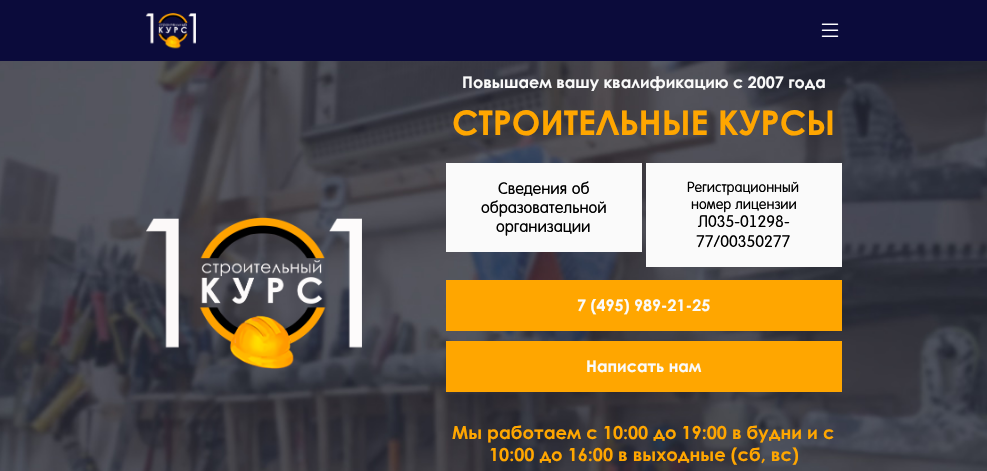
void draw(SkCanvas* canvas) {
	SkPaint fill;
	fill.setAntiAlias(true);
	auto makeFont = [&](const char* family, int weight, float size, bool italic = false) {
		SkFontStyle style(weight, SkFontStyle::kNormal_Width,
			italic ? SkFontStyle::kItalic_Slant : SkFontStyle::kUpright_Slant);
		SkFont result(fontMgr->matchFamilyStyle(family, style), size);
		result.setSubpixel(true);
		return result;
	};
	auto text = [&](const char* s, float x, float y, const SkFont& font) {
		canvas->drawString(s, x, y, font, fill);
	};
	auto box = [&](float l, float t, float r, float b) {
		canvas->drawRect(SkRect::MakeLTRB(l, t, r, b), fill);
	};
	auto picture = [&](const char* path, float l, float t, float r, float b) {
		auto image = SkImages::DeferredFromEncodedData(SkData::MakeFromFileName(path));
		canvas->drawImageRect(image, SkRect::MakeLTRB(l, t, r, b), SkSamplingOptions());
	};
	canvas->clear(0xFFFFFFFF);
	fill.setColor(0xFF0B0B3B);
	box(0, 0, 987, 61);
	picture("image0.png", 145, 13, 196, 49);
	picture("image1.png", 821, 23, 839, 37);
	picture("image2.png", 0, 61, 987, 471);
	picture("image3.png", 146, 217, 362, 369);
	fill.setColor(0xFFFAFAFA);
	box(446, 163, 642, 252);
	box(646, 163, 842, 267);
	fill.setColor(0xFFFFA600);
	box(446, 280, 842, 331);
	box(446, 341, 842, 392);
	auto font1 = makeFont("Century Gothic", 700, 16);
	fill.setColor(0xFFFAFAFA);
	text("Повышаем вашу квалификацию с 2007 года", 462, 88, font1);
	auto font2 = makeFont("Century Gothic", 700, 34);
	fill.setColor(0xFFFFA600);
	text("СТРОИТЕЛЬНЫЕ КУРСЫ", 452, 135, font2);
	auto font3 = makeFont("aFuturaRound", 400, 16);
	fill.setColor(0xFF000000);
	text("Сведения об", 498, 194, font3);
	text("образовательной", 481, 213, font3);
	text("организации", 496, 232, font3);
	auto font4 = makeFont("aFuturaRound", 400, 14);
	text("Регистрационный", 687, 192, font4);
	text("номер лицензии", 691, 209, font4);
	text("Л035-01298-", 698, 227, font3);
	text("77/00350277", 696, 247, font3);
	fill.setColor(0xFFFAFAFA);
	text("7 (495) 989-21-25", 577, 311, font1);
	text("Написать нам", 586, 372, font1);
	auto font5 = makeFont("Century Gothic", 700, 18);
	fill.setColor(0xFFFFA600);
	text("Мы работаем с 10:00 до 19:00 в будни и с", 452, 439, font5);
	text("10:00 до 16:00 в выходные (сб, вс)", 489, 461, font5);
}
